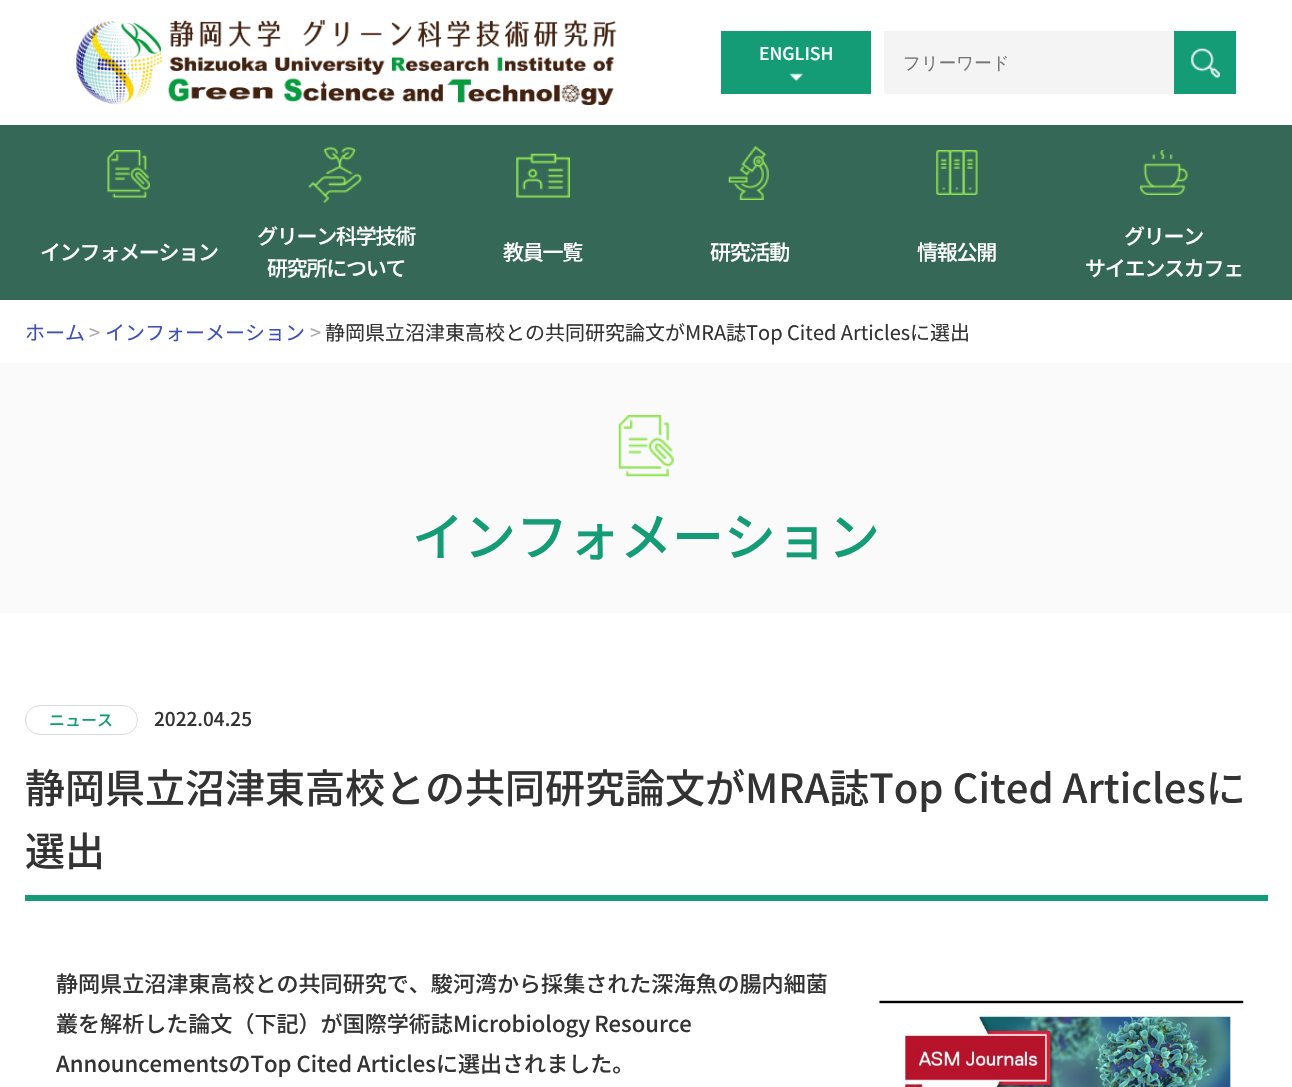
void draw(SkCanvas* canvas) {
	SkPaint fill;
	fill.setAntiAlias(true);
	auto makeFont = [&](const char* family, int weight, float size, bool italic = false) {
		SkFontStyle style(weight, SkFontStyle::kNormal_Width,
			italic ? SkFontStyle::kItalic_Slant : SkFontStyle::kUpright_Slant);
		SkFont result(fontMgr->matchFamilyStyle(family, style), size);
		result.setSubpixel(true);
		return result;
	};
	auto text = [&](const char* s, float x, float y, const SkFont& font) {
		canvas->drawString(s, x, y, font, fill);
	};
	auto spacedText = [&](const char* s, float x, float y, const SkFont& font, const SkPaint& ink, float letter, float word) {
		std::vector<SkGlyphID> glyphs(font.countText(s, strlen(s), SkTextEncoding::kUTF8));
		std::vector<float> xs(glyphs.size());
		font.textToGlyphs(s, strlen(s), SkTextEncoding::kUTF8, glyphs);
		font.getXPos(glyphs, xs, x);
		float extra = 0;
		for (size_t i = 0; i < glyphs.size(); i++) {
			xs[i] += extra;
			extra += letter + word * (glyphs[i] == font.unicharToGlyph(' '));
		}
		canvas->drawTextBlob(SkTextBlob::MakeFromPosHGlyphs(glyphs, xs, y, font), 0, 0, ink);
	};
	auto box = [&](float l, float t, float r, float b) {
		canvas->drawRect(SkRect::MakeLTRB(l, t, r, b), fill);
	};
	auto picture = [&](const char* path, float l, float t, float r, float b) {
		auto image = SkImages::DeferredFromEncodedData(SkData::MakeFromFileName(path));
		canvas->drawImageRect(image, SkRect::MakeLTRB(l, t, r, b), SkSamplingOptions());
	};
	canvas->clear(0xFFFFFFFF);
	picture("image0.png", 76, 20, 617, 105);
	fill.setColor(0xFF149C77);
	box(721, 31, 871, 94);
	picture("image1.png", 789, 73, 803, 82);
	fill.setColor(0xFFF4F4F4);
	box(884, 31, 1174, 94);
	fill.setColor(0xFF149C77);
	box(1174, 31, 1236, 94);
	picture("image2.png", 1191, 48, 1220, 78);
	fill.setColor(0xFF356857);
	box(0, 125, 1292, 300);
	picture("image3.png", 107, 150, 150, 198);
	picture("image4.png", 308, 147, 362, 203);
	picture("image5.png", 516, 153, 570, 198);
	picture("image6.png", 728, 146, 769, 200);
	picture("image7.png", 936, 150, 978, 195);
	picture("image8.png", 1140, 150, 1188, 195);
	fill.setColor(0xFFFAFAFA);
	box(0, 363, 1292, 613);
	picture("image9.png", 618, 415, 674, 477);
	fill.setStyle(SkPaint::kStroke_Style);
	fill.setStrokeWidth(1);
	fill.setColor(0xFFDBDBDB);
	canvas->drawRoundRect(SkRect::MakeLTRB(25.5f, 705.5f, 137.5f, 734.5f), 14.5f, 14.5f, fill);
	fill.setStyle(SkPaint::kFill_Style);
	fill.setColor(0xFF149C77);
	box(25, 895, 1268, 901);
	picture("image10.png", 879, 1000, 1244, 1087);
	auto font1 = makeFont("Noto Sans JP", 500, 17.5f);
	fill.setColor(0xFFFFFFFF);
	text("ENGLISH", 759, 60, font1);
	auto font2 = makeFont("WenQuanYi Zen Hei", 500, 17.5f);
	fill.setColor(0xFF757575);
	text("フリーワード", 903, 69, font2);
	auto font3 = makeFont("Noto Sans JP", 500, 21);
	fill.setColor(0xFFFFFFFF);
	spacedText("インフォメーション", 40, 260, font3, fill, -1.25f, 0);
	spacedText("グリーン科学技術", 257, 244, font3, fill, -1.25f, 0);
	spacedText("研究所について", 267, 276, font3, fill, -1.25f, 0);
	spacedText("教員一覧", 503, 260, font3, fill, -1.25f, 0);
	spacedText("研究活動", 710, 260, font3, fill, -1.25f, 0);
	spacedText("情報公開", 917, 260, font3, fill, -1.25f, 0);
	spacedText("グリーン", 1124, 244, font3, fill, -1.25f, 0);
	spacedText("サイエンスカフェ", 1085, 276, font3, fill, -1.25f, 0);
	auto font4 = makeFont("Noto Sans JP", 400, 20);
	fill.setColor(0xFF3F51B5);
	text("ホーム", 25, 340, font4);
	fill.setColor(0xFFAAAAAA);
	text(">", 89, 340, font4);
	fill.setColor(0xFF3F51B5);
	text("インフォーメーション", 105, 340, font4);
	fill.setColor(0xFFAAAAAA);
	text(">", 310, 340, font4);
	fill.setColor(0xFF333333);
	text("静岡県立沼津東高校との共同研究論文がMRA誌Top Cited Articlesに選出", 325, 340, font4);
	auto font5 = makeFont("Noto Sans JP", 500, 52);
	fill.setColor(0xFF149C77);
	text("インフォメーション", 412, 556, font5);
	auto font6 = makeFont("Noto Sans JP", 500, 16);
	text("ニュース", 49, 726, font6);
	auto font7 = makeFont("Noto Sans JP", 500, 19);
	fill.setColor(0xFF333333);
	text("2022.04.25", 154, 726, font7);
	auto font8 = makeFont("Noto Sans JP", 500, 40);
	text("静岡県立沼津東高校との共同研究論文がMRA誌Top Cited Articlesに", 25, 803, font8);
	text("選出", 25, 866, font8);
	auto font9 = makeFont("Noto Sans JP", 500, 22.05f);
	text("静岡県立沼津東高校との共同研究で、駿河湾から採集された深海魚の腸内細菌", 56, 992, font9);
	spacedText("叢を解析した論文（下記）が国際学術誌Microbiology Resource", 56, 1032, font9, fill, 0, -1);
	text("AnnouncementsのTop Cited Articlesに選出されました。", 56, 1072, font9);
}
